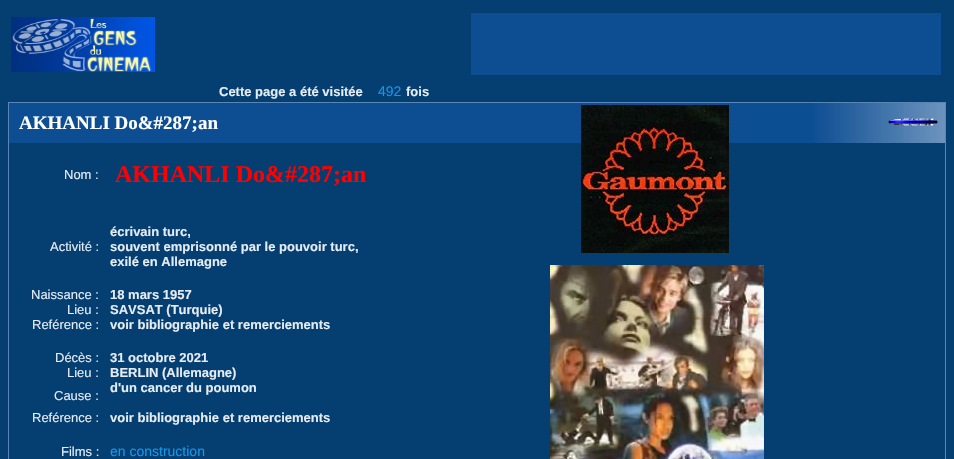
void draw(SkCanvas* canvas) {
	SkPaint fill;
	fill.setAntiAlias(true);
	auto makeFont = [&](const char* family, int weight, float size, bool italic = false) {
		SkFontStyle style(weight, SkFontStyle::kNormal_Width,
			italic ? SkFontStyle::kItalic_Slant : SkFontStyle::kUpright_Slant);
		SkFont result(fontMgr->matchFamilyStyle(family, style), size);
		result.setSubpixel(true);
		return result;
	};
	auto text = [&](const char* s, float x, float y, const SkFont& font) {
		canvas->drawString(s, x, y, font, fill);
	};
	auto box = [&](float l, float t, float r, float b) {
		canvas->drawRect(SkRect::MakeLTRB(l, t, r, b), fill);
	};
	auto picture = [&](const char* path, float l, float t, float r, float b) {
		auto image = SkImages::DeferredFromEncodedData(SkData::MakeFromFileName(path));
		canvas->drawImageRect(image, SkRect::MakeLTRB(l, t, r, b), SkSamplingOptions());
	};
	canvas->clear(0xFF053F72);
	picture("image0.png", 11, 17, 155, 72);
	fill.setColor(0xFF0D4E93);
	box(471, 13, 941, 75);
	fill.setColor(0xFF5986B5);
	box(8, 102, 946, 459);
	fill.setColor(0xFF0D4E93);
	box(9, 103, 748, 143);
	picture("image1.png", 748, 103, 945, 143);
	picture("image2.png", 888, 118, 938, 126);
	fill.setColor(0xFF053F72);
	box(9, 143, 945, 459);
	picture("image3.png", 581, 105, 729, 253);
	picture("image4.png", 550, 265, 764, 459);
	auto font1 = makeFont("Liberation Sans", 700, 13);
	fill.setColor(0xFFE5ECF3);
	text("Cette page a été visitée", 219, 96, font1);
	auto font2 = makeFont("Liberation Sans", 400, 14);
	fill.setColor(0xFF1397E9);
	text("492", 378, 96, font2);
	fill.setColor(0xFFE5ECF3);
	text("fois", 406, 96, font1);
	auto font3 = makeFont("Liberation Serif", 700, 19);
	fill.setColor(0xFFFFFFFF);
	text("AKHANLI Do&#287;an", 19, 129, font3);
	auto font4 = makeFont("Liberation Sans", 400, 13);
	fill.setColor(0xFFE5ECF3);
	text("Nom :", 64, 179, font4);
	auto font5 = makeFont("Liberation Serif", 700, 24);
	fill.setColor(0xFFFF0000);
	text("AKHANLI Do&#287;an", 115, 182, font5);
	fill.setColor(0xFFE5ECF3);
	text("Activité :", 50, 251, font4);
	text("écrivain turc,", 110, 236, font1);
	text("souvent emprisonné par le pouvoir turc,", 110, 251, font1);
	text("exilé en Allemagne", 110, 266, font1);
	text("Naissance :", 31, 299, font4);
	text("18 mars 1957", 110, 299, font1);
	text("Lieu :", 67, 314, font4);
	text("SAVSAT (Turquie)", 110, 314, font1);
	text("Reférence :", 32, 329, font4);
	text("voir bibliographie et remerciements", 110, 329, font1);
	text("Décès :", 55, 362, font4);
	text("31 octobre 2021", 110, 362, font1);
	text("Lieu :", 67, 377, font4);
	text("BERLIN (Allemagne)", 110, 377, font1);
	text("Cause :", 54, 400, font4);
	text("d'un cancer du poumon", 110, 392, font1);
	text("Reférence :", 32, 422, font4);
	text("voir bibliographie et remerciements", 110, 422, font1);
	text("Films :", 61, 456, font4);
	fill.setColor(0xFF1397E9);
	text("en construction", 110, 456, font2);
}
